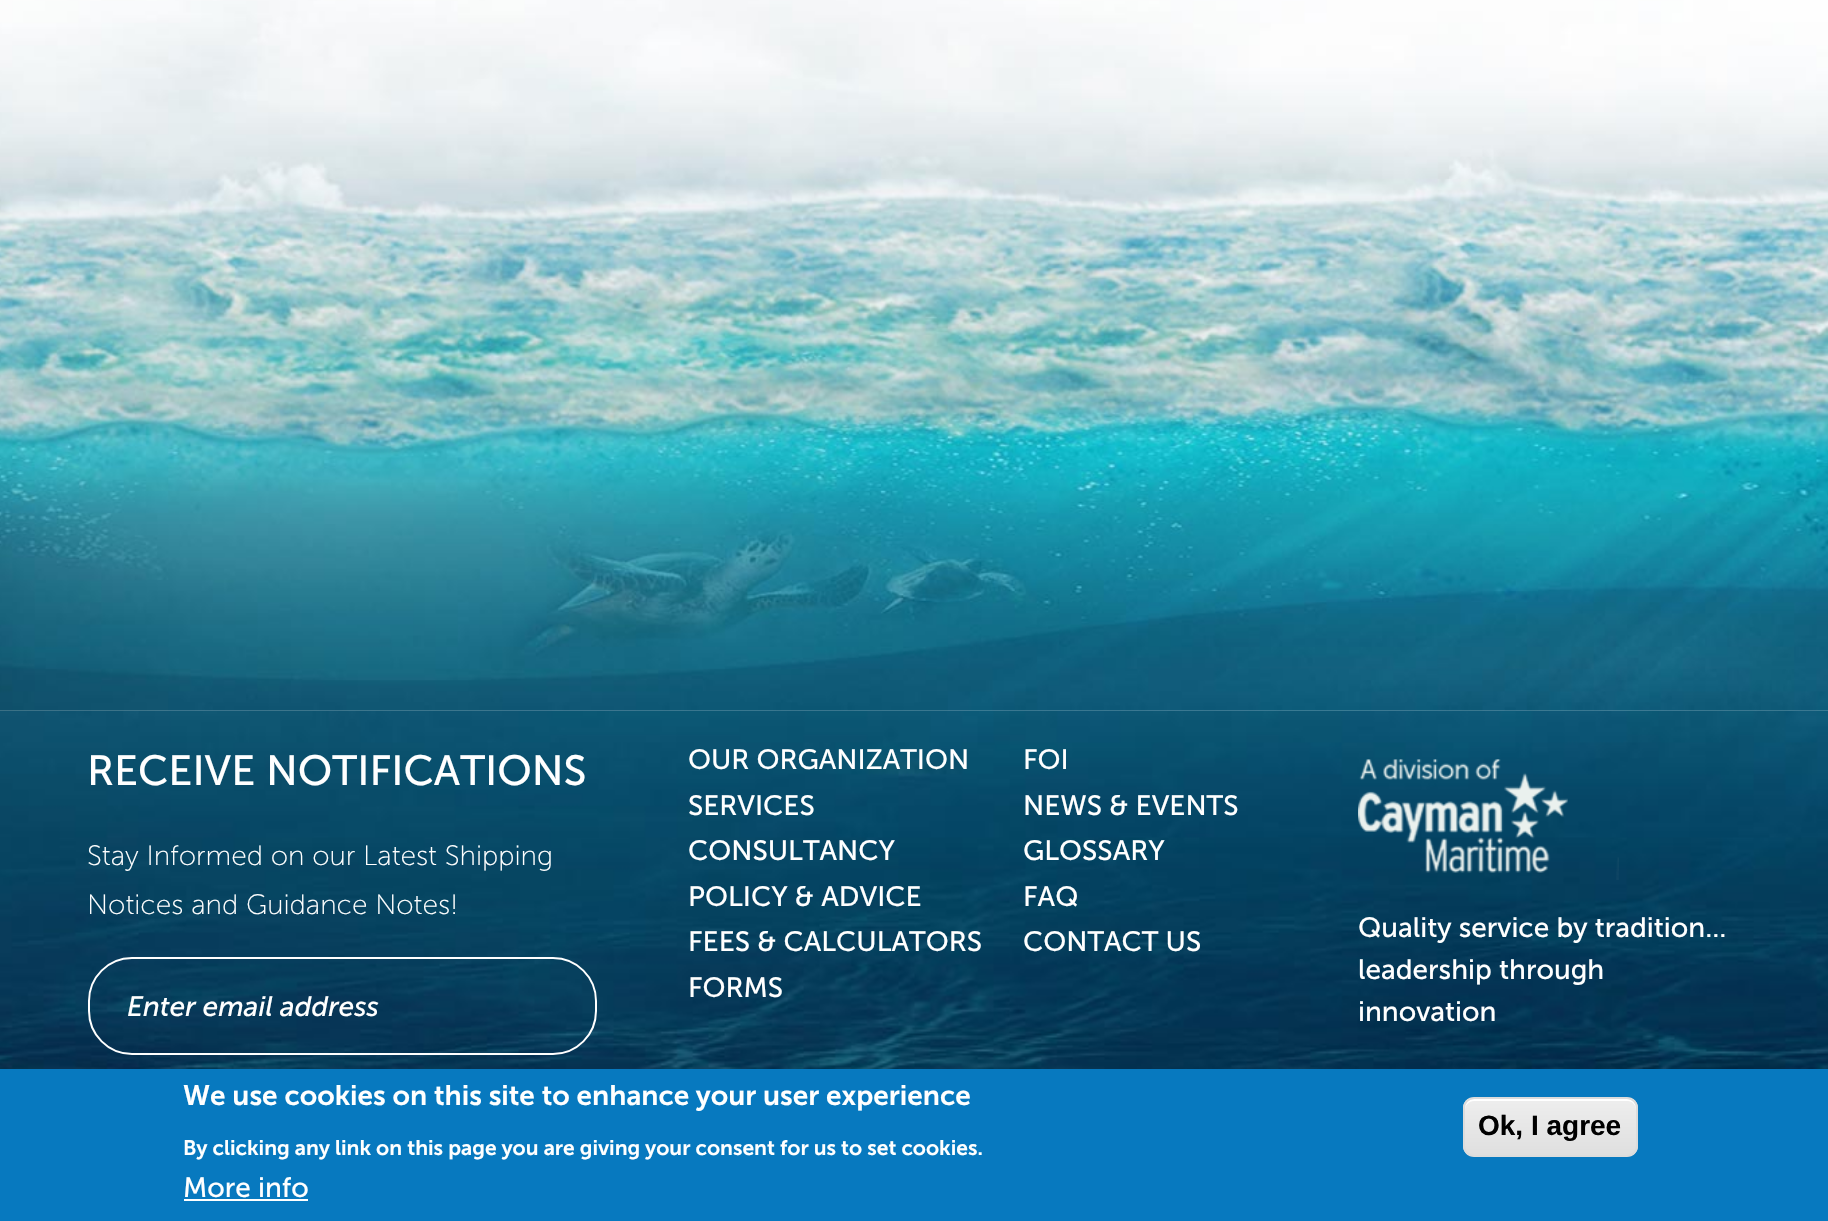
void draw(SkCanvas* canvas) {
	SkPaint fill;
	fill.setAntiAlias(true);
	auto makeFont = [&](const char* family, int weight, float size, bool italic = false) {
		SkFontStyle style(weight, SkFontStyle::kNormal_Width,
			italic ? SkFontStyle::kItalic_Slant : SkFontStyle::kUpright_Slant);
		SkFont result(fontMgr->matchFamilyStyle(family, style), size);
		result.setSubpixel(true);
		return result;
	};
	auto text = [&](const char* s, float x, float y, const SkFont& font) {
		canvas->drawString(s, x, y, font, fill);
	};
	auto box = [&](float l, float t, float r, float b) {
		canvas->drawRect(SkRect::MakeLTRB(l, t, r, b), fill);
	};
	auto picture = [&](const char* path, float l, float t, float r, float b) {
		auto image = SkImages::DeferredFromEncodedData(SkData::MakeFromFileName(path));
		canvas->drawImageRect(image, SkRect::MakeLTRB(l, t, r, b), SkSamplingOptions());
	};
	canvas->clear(0xFFFFFFFF);
	picture("image1.png", 0, 710, 1828, 1069);
	picture("image0.png", 0, 0, 1828, 711);
	fill.setStyle(SkPaint::kStroke_Style);
	fill.setStrokeWidth(2);
	fill.setColor(0xFFFFFFFF);
	canvas->drawRoundRect(SkRect::MakeLTRB(89, 958, 596, 1054), 43, 43, fill);
	picture("image2.png", 1358, 759, 1619, 880);
	fill.setStyle(SkPaint::kFill_Style);
	fill.setColor(0xFF0779BF);
	box(0, 1069, 1828, 1221);
	fill.setColor(0xFFFFFFFF);
	box(184, 1199, 308, 1201);
	canvas->save();
	canvas->clipPath(SkPathBuilder().moveTo(1474, 1097).lineTo(1627, 1097).cubicTo(1633, 1097, 1638, 1102, 1638, 1108).lineTo(1638, 1146).cubicTo(1638, 1152, 1633, 1157, 1627, 1157).lineTo(1474, 1157).cubicTo(1468, 1157, 1463, 1152, 1463, 1146).lineTo(1463, 1108).cubicTo(1463, 1102, 1468, 1097, 1474, 1097).close().detach(), true);
	{
		const SkColor colors[] = {0xFFEDEDED, 0xFFDFDFDF};
		const float stops[] = {0.05f, 1};
		const SkPoint ends[] = {{1551, 1099}, {1551, 1155}};
		fill.setShader(SkGradientShader::MakeLinear(ends, colors, stops, 2, SkTileMode::kClamp));
		fill.setAlpha(255);
	}
	box(1463, 1099, 1638, 1155);
	canvas->restore();
	fill.setShader(nullptr);
	fill.setColor(0xFFFFFFFF);
	canvas->drawPath(SkPathBuilder().moveTo(1474, 1101).lineTo(1628, 1101).cubicTo(1632, 1101, 1636, 1105, 1636, 1110).lineTo(1636, 1108).cubicTo(1636, 1103, 1632, 1099, 1627, 1099).lineTo(1474, 1099).cubicTo(1469, 1099, 1465, 1103, 1465, 1108).lineTo(1465, 1110).cubicTo(1465, 1105, 1469, 1101, 1474, 1101).close().detach(), fill);
	fill.setStyle(SkPaint::kStroke_Style);
	fill.setColor(0xFFDCDCDC);
	canvas->drawRoundRect(SkRect::MakeLTRB(1464, 1098, 1637, 1156), 10, 10, fill);
	auto font1 = makeFont("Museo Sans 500", 400, 42);
	fill.setStyle(SkPaint::kFill_Style);
	fill.setColor(0xFFFFFFFF);
	text("RECEIVE NOTIFICATIONS", 87, 785, font1);
	auto font2 = makeFont("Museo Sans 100", 300, 28);
	text("Stay Informed on our Latest Shipping", 87, 865, font2);
	text("Notices and Guidance Notes!", 87, 914, font2);
	auto font3 = makeFont("Museo Sans 500", 400, 28, true);
	text("Enter email address", 127, 1016, font3);
	auto font4 = makeFont("Museo Sans 500", 400, 28);
	text("OUR ORGANIZATION", 688, 769, font4);
	text("FOI", 1023, 769, font4);
	text("SERVICES", 688, 815, font4);
	text("NEWS & EVENTS", 1023, 815, font4);
	text("CONSULTANCY", 688, 860, font4);
	text("GLOSSARY", 1023, 860, font4);
	text("POLICY & ADVICE", 688, 906, font4);
	text("FAQ", 1023, 906, font4);
	text("FEES & CALCULATORS", 688, 951, font4);
	text("CONTACT US", 1023, 951, font4);
	text("FORMS", 688, 997, font4);
	text("Quality service by tradition...", 1358, 937, font4);
	text("leadership through", 1358, 979, font4);
	text("innovation", 1358, 1021, font4);
	auto font5 = makeFont("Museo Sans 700", 600, 28);
	text("We use cookies on this site to enhance your user experience", 183, 1105, font5);
	auto font6 = makeFont("Museo Sans 700", 600, 21);
	text("By clicking any link on this page you are giving your consent for us to set cookies.", 183, 1155, font6);
	text("More info", 183, 1197, font4);
	auto font7 = makeFont("Liberation Sans", 700, 28);
	fill.setColor(0xFF000000);
	text("Ok, I agree", 1478, 1135, font7);
}
